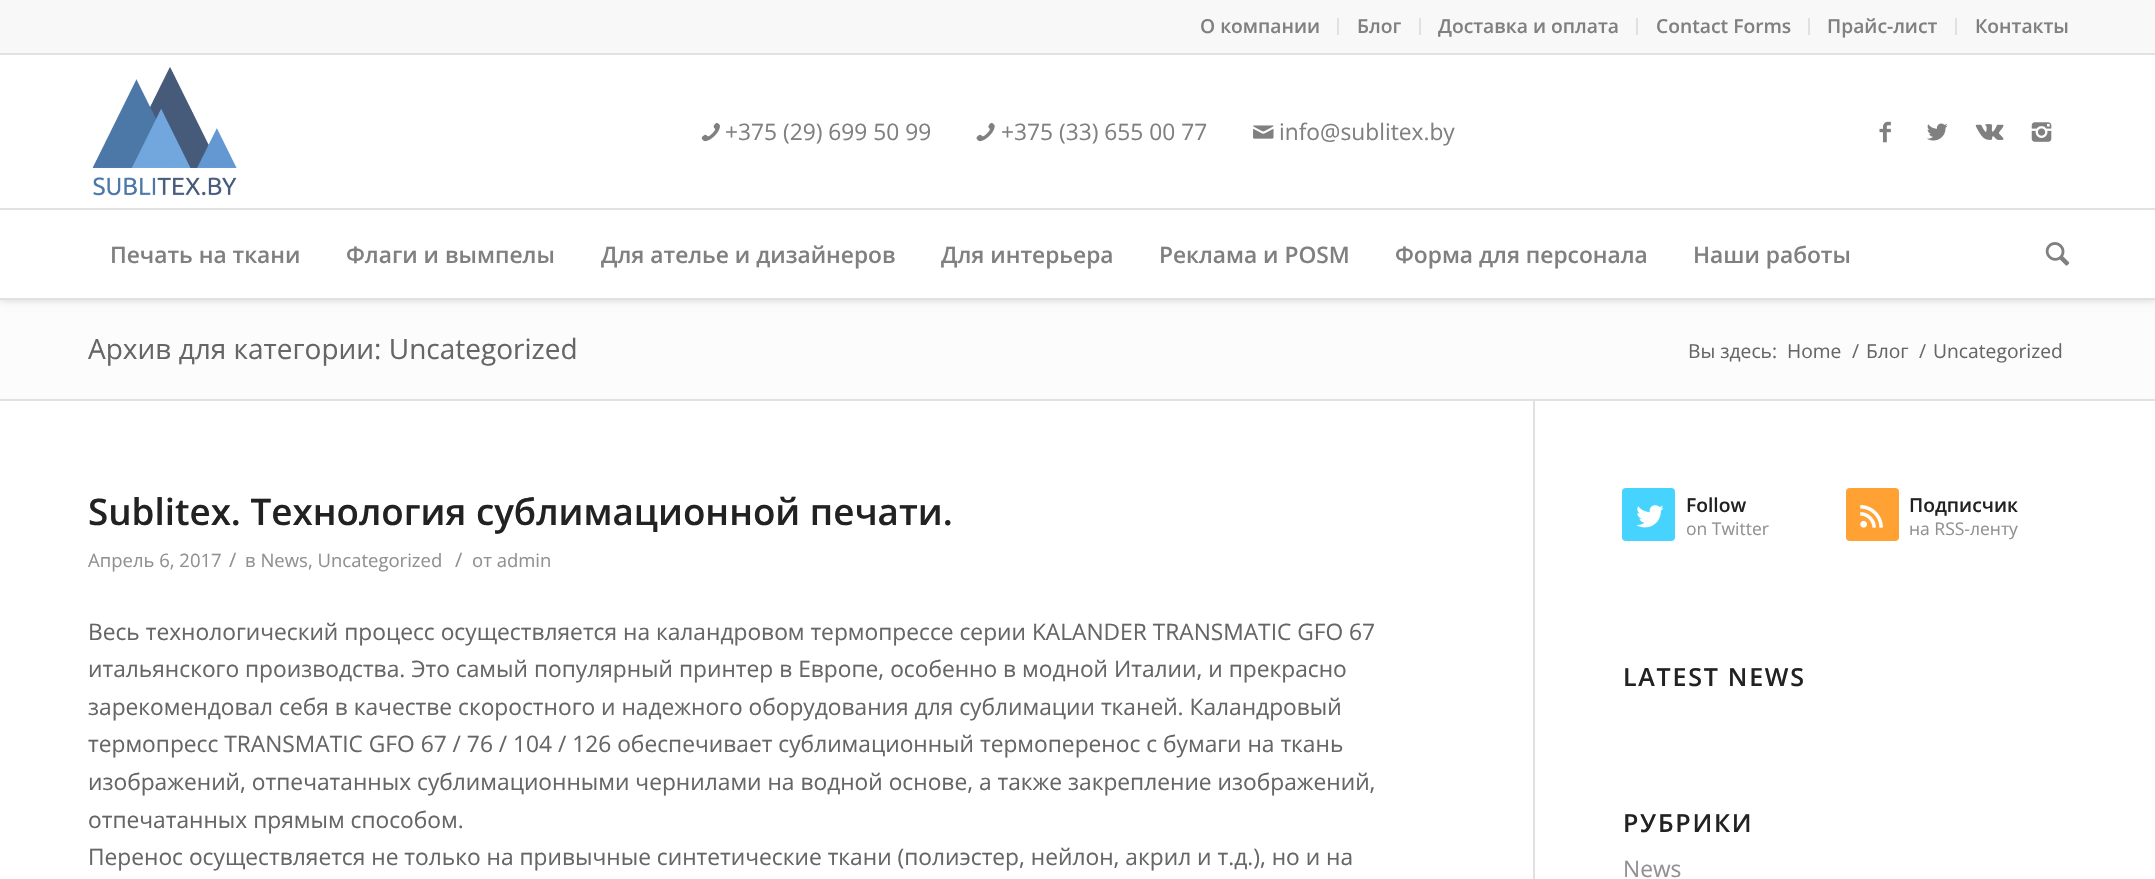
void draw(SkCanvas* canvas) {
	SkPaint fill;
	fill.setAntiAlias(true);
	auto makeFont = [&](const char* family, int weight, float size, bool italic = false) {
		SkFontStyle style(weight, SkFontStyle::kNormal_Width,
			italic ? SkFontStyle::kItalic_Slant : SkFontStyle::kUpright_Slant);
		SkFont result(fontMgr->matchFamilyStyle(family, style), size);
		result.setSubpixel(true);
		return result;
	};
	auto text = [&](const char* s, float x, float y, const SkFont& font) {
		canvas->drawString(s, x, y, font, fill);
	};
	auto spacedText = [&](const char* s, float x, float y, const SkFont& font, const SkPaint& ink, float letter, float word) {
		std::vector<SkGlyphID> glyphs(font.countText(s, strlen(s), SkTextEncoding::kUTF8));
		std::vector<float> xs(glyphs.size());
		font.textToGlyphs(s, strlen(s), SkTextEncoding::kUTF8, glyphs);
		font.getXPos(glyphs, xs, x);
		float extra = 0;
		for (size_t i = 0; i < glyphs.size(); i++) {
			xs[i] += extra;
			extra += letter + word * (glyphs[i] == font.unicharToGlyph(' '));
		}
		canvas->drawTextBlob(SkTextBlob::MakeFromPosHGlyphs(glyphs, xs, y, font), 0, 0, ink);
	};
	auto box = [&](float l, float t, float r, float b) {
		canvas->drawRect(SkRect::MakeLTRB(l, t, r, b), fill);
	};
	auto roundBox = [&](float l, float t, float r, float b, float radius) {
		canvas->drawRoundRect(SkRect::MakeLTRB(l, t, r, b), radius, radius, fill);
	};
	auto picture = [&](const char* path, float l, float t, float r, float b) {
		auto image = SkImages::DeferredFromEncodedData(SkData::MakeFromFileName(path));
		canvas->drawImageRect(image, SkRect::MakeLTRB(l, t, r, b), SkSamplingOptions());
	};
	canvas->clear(0xFFFFFFFF);
	fill.setColor(0xFFFCFCFC);
	box(0, 300, 2155, 399);
	fill.setColor(0x33000000);
	fill.setMaskFilter(SkMaskFilter::MakeBlur(kNormal_SkBlurStyle, 4.5f));
	canvas->drawRect(SkRect::MakeLTRB(0, 0, 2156, 299), fill);
	fill.setMaskFilter(nullptr);
	fill.setColor(0xFFFFFFFF);
	box(0, 55, 2155, 298);
	fill.setColor(0xFFF8F8F8);
	box(0, 0, 2155, 53);
	fill.setColor(0xFFE1E1E1);
	box(0, 53, 2155, 55);
	box(1337, 18, 1339, 35);
	box(1419, 18, 1421, 35);
	box(1636, 18, 1638, 35);
	box(1808, 18, 1810, 35);
	box(1955, 18, 1957, 35);
	box(0, 298, 2155, 300);
	picture("image0.png", 92, 67, 237, 196);
	picture("image1.png", 701, 122, 720, 142);
	picture("image2.png", 976, 122, 995, 142);
	picture("image3.png", 1253, 125, 1274, 139);
	picture("image4.png", 1879, 121, 1891, 143);
	picture("image5.png", 1927, 123, 1948, 141);
	picture("image6.png", 1975, 124, 2004, 140);
	picture("image7.png", 2031, 122, 2052, 142);
	box(0, 208, 2155, 210);
	picture("image8.png", 2045, 242, 2070, 266);
	box(0, 399, 2155, 401);
	box(1533, 401, 1535, 879);
	fill.setColor(0xFF46D4FE);
	roundBox(1622, 488, 1675, 541, 4);
	picture("image9.png", 1636, 505, 1664, 528);
	fill.setColor(0xFFFFA133);
	roundBox(1846, 488, 1899, 541, 4);
	picture("image10.png", 1860, 505, 1883, 528);
	auto font1 = makeFont("Open Sans", 600, 19.25f);
	fill.setColor(0xFF808080);
	text("О компании", 1200, 33, font1);
	text("Блог", 1357, 33, font1);
	text("Доставка и оплата", 1438, 33, font1);
	text("Contact Forms", 1656, 33, font1);
	text("Прайс-лист", 1827, 33, font1);
	text("Контакты", 1975, 33, font1);
	auto font2 = makeFont("Open Sans", 400, 22.75f);
	text("+375 (29) 699 50 99", 725, 140, font2);
	text("+375 (33) 655 00 77", 1001, 140, font2);
	text("info@sublitex.by", 1279, 140, font2);
	auto font3 = makeFont("Open Sans", 600, 22.75f);
	text("Печать на ткани", 110, 263, font3);
	text("Флаги и вымпелы", 346, 263, font3);
	text("Для ателье и дизайнеров", 601, 263, font3);
	text("Для интерьера", 941, 263, font3);
	text("Реклама и POSM", 1159, 263, font3);
	text("Форма для персонала", 1395, 263, font3);
	text("Наши работы", 1693, 263, font3);
	auto font4 = makeFont("Open Sans", 400, 28);
	fill.setColor(0xFF666666);
	text("Архив для категории: Uncategorized", 88, 359, font4);
	auto font5 = makeFont("Open Sans", 400, 19.25f);
	text("Вы здесь:", 1688, 358, font5);
	text("Home", 1787, 358, font5);
	text("/", 1852, 358, font5);
	text("Блог", 1866, 358, font5);
	text("/", 1919, 358, font5);
	text("Uncategorized", 1933, 358, font5);
	auto font6 = makeFont("Open Sans", 600, 36.75f);
	fill.setColor(0xFF222222);
	text("Sublitex. Технология сублимационной печати.", 88, 525, font6);
	auto font7 = makeFont("Open Sans", 400, 18.5f);
	fill.setColor(0xFF919191);
	text("Апрель 6, 2017", 88, 567, font7);
	auto font8 = makeFont("Open Sans", 400, 20);
	text("/", 229, 567, font8);
	text("в News, Uncategorized", 245, 567, font7);
	text("/", 455, 567, font8);
	text("от admin", 472, 567, font7);
	fill.setColor(0xFF666666);
	text("Весь технологический процесс осуществляется на каландровом термопрессе серии KALANDER TRANSMATIC GFO 67", 88, 640, font2);
	text("итальянского производства. Это самый популярный принтер в Европе, особенно в модной Италии, и прекрасно", 88, 677, font2);
	text("зарекомендовал себя в качестве скоростного и надежного оборудования для сублимации тканей. Каландровый", 88, 715, font2);
	text("термопресс TRANSMATIC GFO 67 / 76 / 104 / 126 обеспечивает сублимационный термоперенос с бумаги на ткань", 88, 752, font2);
	text("изображений, отпечатанных сублимационными чернилами на водной основе, а также закрепление изображений,", 88, 790, font2);
	text("отпечатанных прямым способом.", 88, 828, font2);
	text("Перенос осуществляется не только на привычные синтетические ткани (полиэстер, нейлон, акрил и т.д.), но и на", 88, 865, font2);
	fill.setColor(0xFF222222);
	text("Follow", 1686, 512, font1);
	auto font9 = makeFont("Open Sans", 400, 17.5f);
	fill.setColor(0xFF919191);
	text("on Twitter", 1686, 535, font9);
	fill.setColor(0xFF222222);
	text("Подписчик", 1909, 512, font1);
	fill.setColor(0xFF919191);
	text("на RSS-ленту", 1909, 535, font9);
	auto font10 = makeFont("Open Sans", 600, 25);
	fill.setColor(0xFF222222);
	spacedText("LATEST NEWS", 1623, 686, font10, fill, 1.75f, 0);
	spacedText("РУБРИКИ", 1623, 832, font10, fill, 1.75f, 0);
	fill.setColor(0xFF919191);
	text("News", 1623, 877, font2);
}
